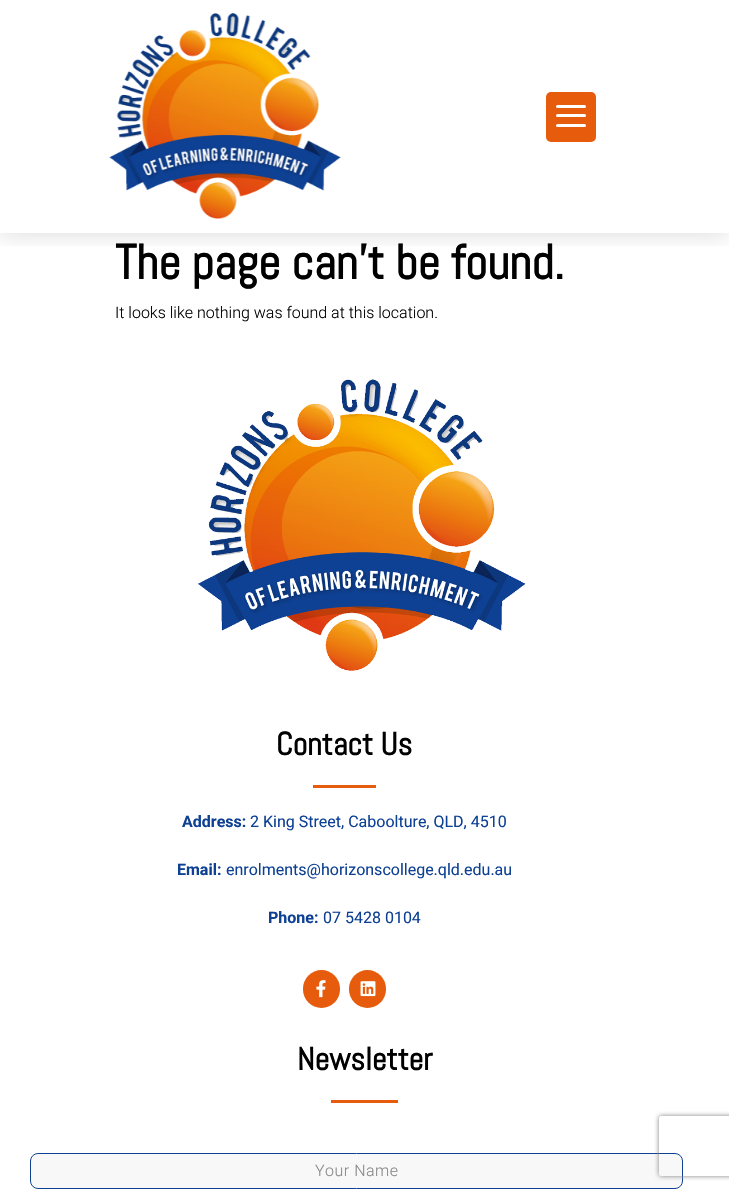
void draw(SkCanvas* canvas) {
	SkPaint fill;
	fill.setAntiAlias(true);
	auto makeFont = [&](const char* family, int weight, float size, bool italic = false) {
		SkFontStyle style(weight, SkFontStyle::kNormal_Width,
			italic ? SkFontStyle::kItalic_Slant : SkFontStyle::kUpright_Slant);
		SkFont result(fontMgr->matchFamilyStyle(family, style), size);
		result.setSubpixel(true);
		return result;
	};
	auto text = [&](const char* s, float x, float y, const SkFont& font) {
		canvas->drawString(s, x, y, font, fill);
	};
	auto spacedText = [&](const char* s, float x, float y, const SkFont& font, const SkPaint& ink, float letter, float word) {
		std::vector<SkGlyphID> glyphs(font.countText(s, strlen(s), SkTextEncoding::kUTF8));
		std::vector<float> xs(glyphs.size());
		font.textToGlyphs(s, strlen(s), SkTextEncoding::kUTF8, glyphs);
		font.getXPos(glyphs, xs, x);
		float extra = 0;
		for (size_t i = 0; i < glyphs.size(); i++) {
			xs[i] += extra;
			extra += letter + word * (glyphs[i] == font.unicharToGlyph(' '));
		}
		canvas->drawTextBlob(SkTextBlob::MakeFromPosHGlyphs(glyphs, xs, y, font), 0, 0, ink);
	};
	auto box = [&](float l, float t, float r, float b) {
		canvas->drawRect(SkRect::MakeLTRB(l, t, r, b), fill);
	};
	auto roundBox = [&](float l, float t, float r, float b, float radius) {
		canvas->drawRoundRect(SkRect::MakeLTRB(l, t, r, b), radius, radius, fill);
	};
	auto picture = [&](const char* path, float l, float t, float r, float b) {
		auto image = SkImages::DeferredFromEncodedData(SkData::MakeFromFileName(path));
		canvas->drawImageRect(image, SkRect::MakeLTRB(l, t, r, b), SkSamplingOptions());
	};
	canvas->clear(0xFFFFFFFF);
	canvas->save();
	canvas->clipRect(SkRect::MakeLTRB(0, 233, 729, 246));
	fill.setColor(0x26000000);
	fill.setMaskFilter(SkMaskFilter::MakeBlur(kNormal_SkBlurStyle, 12));
	canvas->drawRect(SkRect::MakeLTRB(0, 0, 729, 233), fill);
	fill.setMaskFilter(nullptr);
	canvas->restore();
	picture("image0.png", 109, 13, 341, 219);
	fill.setColor(0xFFE75B0C);
	roundBox(546, 92, 596, 142, 5);
	fill.setColor(0xFFFFFFFF);
	roundBox(556, 114, 586, 117, 1.5f);
	roundBox(556, 105, 586, 108, 1.5f);
	roundBox(556, 124, 586, 127, 1.5f);
	picture("image1.png", 197, 379, 526, 671);
	fill.setColor(0xFFE75B0C);
	box(313, 785, 376, 788);
	roundBox(303, 970, 340, 1008, 18.5f);
	picture("image2.png", 316, 980, 326, 998);
	roundBox(349, 970, 386, 1008, 18.5f);
	picture("image3.png", 360, 981, 376, 997);
	box(331, 1100, 398, 1103);
	fill.setColor(0xFFF8F8F8);
	canvas->drawRoundRect(SkRect::MakeLTRB(30.5f, 1153.5f, 682.5f, 1188.5f), 7.5f, 7.5f, fill);
	fill.setStyle(SkPaint::kStroke_Style);
	fill.setStrokeWidth(1);
	fill.setColor(0xFF0E4194);
	canvas->drawRoundRect(SkRect::MakeLTRB(30.5f, 1153.5f, 682.5f, 1188.5f), 7.5f, 7.5f, fill);
	canvas->save();
	canvas->clipPath(SkPathBuilder(SkPathFillType::kEvenOdd).moveTo(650, 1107).lineTo(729, 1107).lineTo(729, 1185).lineTo(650, 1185).close().moveTo(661, 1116).lineTo(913, 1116).cubicTo(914, 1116, 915, 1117, 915, 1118).lineTo(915, 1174).cubicTo(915, 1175, 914, 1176, 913, 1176).lineTo(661, 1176).cubicTo(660, 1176, 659, 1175, 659, 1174).lineTo(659, 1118).cubicTo(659, 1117, 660, 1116, 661, 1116).close().detach(), true);
	fill.setStyle(SkPaint::kFill_Style);
	fill.setColor(0xFF808080);
	fill.setMaskFilter(SkMaskFilter::MakeBlur(kNormal_SkBlurStyle, 2.5f));
	canvas->drawRoundRect(SkRect::MakeLTRB(659, 1116, 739, 1176), 2, 2, fill);
	fill.setMaskFilter(nullptr);
	canvas->restore();
	auto font1 = makeFont("Abel", 700, 48.75f);
	fill.setColor(0xFF000000);
	text("The page can’t be found.", 115, 279, font1);
	auto font2 = makeFont("Roboto", 300, 16);
	text("It looks like nothing was found at this location.", 115, 318, font2);
	auto font3 = makeFont("Abel", 700, 32);
	text("Contact Us", 276, 755, font3);
	auto font4 = makeFont("Roboto", 700, 16);
	fill.setColor(0xFF0E4194);
	text("Address:", 182, 827, font4);
	auto font5 = makeFont("Roboto", 400, 16);
	text("2 King Street, Caboolture, QLD, 4510", 250, 827, font5);
	text("Email:", 177, 875, font4);
	text("enrolments@horizonscollege.qld.edu.au", 226, 875, font5);
	text("Phone:", 268, 923, font4);
	text("07 5428 0104", 323, 923, font5);
	fill.setColor(0xFF000000);
	text("Newsletter", 297, 1070, font3);
	fill.setColor(0xFF8A8888);
	spacedText("Your Name", 315, 1176, font2, fill, 0.5f, 0);
}
